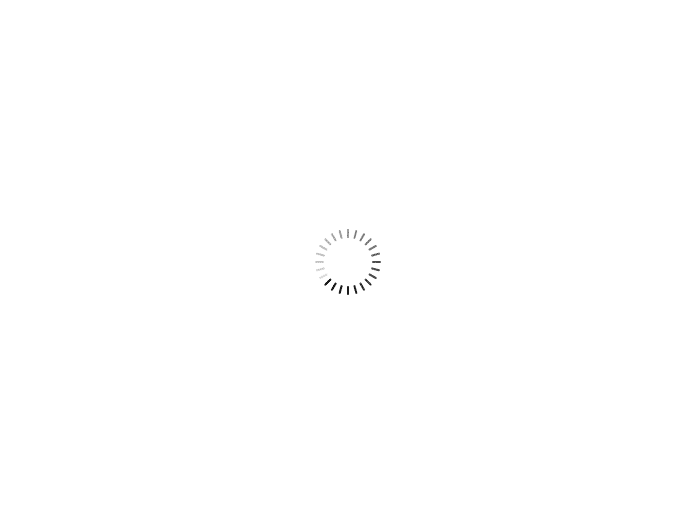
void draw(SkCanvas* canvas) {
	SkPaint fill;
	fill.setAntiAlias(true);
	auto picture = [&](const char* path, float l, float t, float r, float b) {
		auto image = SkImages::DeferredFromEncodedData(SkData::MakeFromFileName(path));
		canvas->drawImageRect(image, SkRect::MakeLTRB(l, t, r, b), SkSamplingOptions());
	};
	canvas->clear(0xFFFFFFFF);
	picture("image0.png", 315, 229, 381, 295);
}
